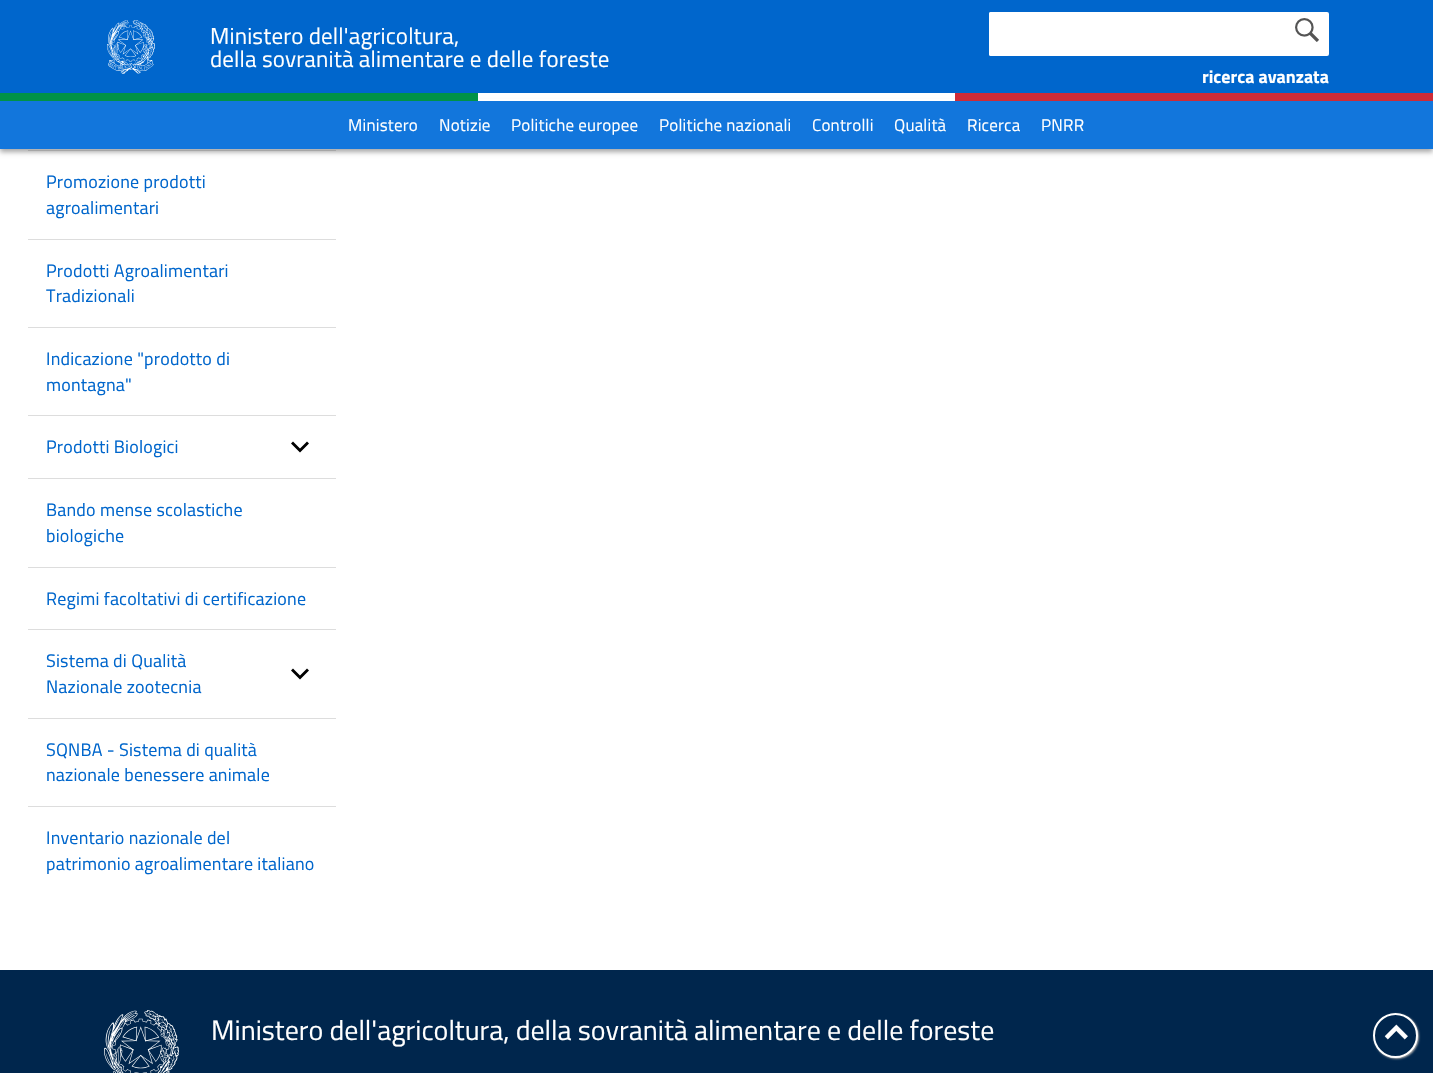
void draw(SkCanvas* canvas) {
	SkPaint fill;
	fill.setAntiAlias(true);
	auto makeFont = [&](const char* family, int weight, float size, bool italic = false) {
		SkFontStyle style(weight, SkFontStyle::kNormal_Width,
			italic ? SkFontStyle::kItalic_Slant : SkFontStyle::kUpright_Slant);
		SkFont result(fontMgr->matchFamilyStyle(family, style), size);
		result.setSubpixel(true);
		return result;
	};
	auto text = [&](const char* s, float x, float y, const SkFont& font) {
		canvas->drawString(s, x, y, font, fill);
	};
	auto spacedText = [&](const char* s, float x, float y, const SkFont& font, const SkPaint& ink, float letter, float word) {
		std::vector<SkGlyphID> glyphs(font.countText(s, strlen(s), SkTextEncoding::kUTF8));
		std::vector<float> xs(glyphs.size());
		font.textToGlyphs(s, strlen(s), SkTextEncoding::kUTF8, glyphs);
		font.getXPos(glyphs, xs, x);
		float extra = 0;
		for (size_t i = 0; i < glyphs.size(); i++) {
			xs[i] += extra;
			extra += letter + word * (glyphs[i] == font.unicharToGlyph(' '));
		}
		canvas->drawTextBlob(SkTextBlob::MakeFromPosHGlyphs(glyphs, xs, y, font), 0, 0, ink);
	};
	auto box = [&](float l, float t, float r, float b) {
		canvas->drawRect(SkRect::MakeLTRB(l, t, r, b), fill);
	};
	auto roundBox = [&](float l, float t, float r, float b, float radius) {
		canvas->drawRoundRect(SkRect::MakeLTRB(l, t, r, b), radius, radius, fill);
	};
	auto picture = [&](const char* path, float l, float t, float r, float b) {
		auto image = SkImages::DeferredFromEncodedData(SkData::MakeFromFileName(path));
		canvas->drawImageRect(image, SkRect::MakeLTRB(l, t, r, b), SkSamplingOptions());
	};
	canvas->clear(0xFFFFFFFF);
	fill.setColor(0xFF0066CC);
	box(0, 0, 1433, 93);
	picture("image0.png", 107, 20, 155, 74);
	fill.setColor(0xFFFFFFFF);
	roundBox(989, 12, 1329, 56, 2);
	roundBox(989, 12, 1325, 56, 2);
	picture("image1.png", 1295, 18, 1319, 42);
	fill.setColor(0xFFDDDDDD);
	box(28, 150, 336, 151);
	fill.setColor(0x59000100);
	fill.setMaskFilter(SkMaskFilter::MakeBlur(kNormal_SkBlurStyle, 2.5f));
	canvas->drawRect(SkRect::MakeLTRB(0, 104, 1433, 152), fill);
	fill.setMaskFilter(nullptr);
	fill.setColor(0xFF009246);
	box(0, 93, 478, 101);
	fill.setColor(0xFFFFFFFF);
	box(478, 99, 955, 101);
	fill.setColor(0xFFCE2B37);
	box(955, 93, 1433, 101);
	fill.setColor(0xFF1276DC);
	box(0, 101, 1433, 149);
	fill.setColor(0xFFDDDDDD);
	box(28, 239, 336, 240);
	box(28, 327, 336, 328);
	box(28, 415, 336, 416);
	fill.setColor(0xFF000000);
	canvas->drawPath(SkPathBuilder().moveTo(293, 441.5f).lineTo(291, 443.5f).lineTo(300, 452.5f).lineTo(309, 443.5f).lineTo(307, 441.5f).lineTo(300, 448.5f).close().detach(), fill);
	fill.setColor(0xFFDDDDDD);
	box(28, 478, 336, 479);
	box(28, 567, 336, 568);
	box(28, 629, 336, 630);
	fill.setColor(0xFF000000);
	canvas->drawPath(SkPathBuilder().moveTo(293, 668.5f).lineTo(291, 670.5f).lineTo(300, 679.5f).lineTo(309, 670.5f).lineTo(307, 668.5f).lineTo(300, 675.5f).close().detach(), fill);
	fill.setColor(0xFFDDDDDD);
	box(28, 718, 336, 719);
	box(28, 806, 336, 807);
	fill.setColor(0xFF00264D);
	box(0, 970, 1433, 1073);
	picture("image2.png", 104, 1010, 179, 1073);
	fill.setColor(0xFFAAAAAA);
	fill.setMaskFilter(SkMaskFilter::MakeBlur(kNormal_SkBlurStyle, 1));
	canvas->drawRoundRect(SkRect::MakeLTRB(1374, 1014, 1419, 1059), 22.5f, 22.5f, fill);
	fill.setMaskFilter(nullptr);
	fill.setColor(0xFF00264D);
	canvas->drawCircle(1395.5f, 1035.5f, 21.5f, fill);
	fill.setStyle(SkPaint::kStroke_Style);
	fill.setStrokeWidth(2);
	fill.setColor(0xFFFFFFFF);
	canvas->drawCircle(1395.5f, 1035.5f, 21.5f, fill);
	auto font1 = makeFont("Titillium Web", 400, 23);
	fill.setStyle(SkPaint::kFill_Style);
	spacedText("Ministero dell'agricoltura,", 210, 44, font1, fill, 0.15f, 0);
	spacedText("della sovranità alimentare e delle foreste", 210, 67, font1, fill, 0.15f, 0);
	auto font2 = makeFont("Titillium Web", 700, 18);
	text("ricerca avanzata", 1202, 83, font2);
	auto font3 = makeFont("Titillium Web", 400, 17);
	spacedText("Ministero", 348, 131, font3, fill, 0.2f, 0);
	spacedText("Notizie", 439, 131, font3, fill, 0.2f, 0);
	spacedText("Politiche europee", 511, 131, font3, fill, 0.2f, 0);
	spacedText("Politiche nazionali", 659, 131, font3, fill, 0.2f, 0);
	spacedText("Controlli", 812, 131, font3, fill, 0.2f, 0);
	spacedText("Qualità", 894, 131, font3, fill, 0.2f, 0);
	spacedText("Ricerca", 967, 131, font3, fill, 0.2f, 0);
	spacedText("PNRR", 1041, 131, font3, fill, 0.2f, 0);
	auto font4 = makeFont("Titillium Web", 400, 18);
	fill.setColor(0xFF0066CC);
	spacedText("Promozione prodotti", 46, 188, font4, fill, 0.2f, 0);
	spacedText("agroalimentari", 46, 214, font4, fill, 0.2f, 0);
	spacedText("Prodotti Agroalimentari", 46, 277, font4, fill, 0.2f, 0);
	spacedText("Tradizionali", 46, 302, font4, fill, 0.2f, 0);
	spacedText("Indicazione \"prodotto di", 46, 365, font4, fill, 0.2f, 0);
	spacedText("montagna\"", 46, 391, font4, fill, 0.2f, 0);
	spacedText("Prodotti Biologici", 46, 453, font4, fill, 0.2f, 0);
	spacedText("Bando mense scolastiche", 46, 516, font4, fill, 0.2f, 0);
	spacedText("biologiche", 46, 542, font4, fill, 0.2f, 0);
	spacedText("Regimi facoltativi di certificazione", 46, 605, font4, fill, 0.2f, 0);
	spacedText("Sistema di Qualità", 46, 667, font4, fill, 0.2f, 0);
	spacedText("Nazionale zootecnia", 46, 693, font4, fill, 0.2f, 0);
	spacedText("SQNBA - Sistema di qualità", 46, 756, font4, fill, 0.2f, 0);
	spacedText("nazionale benessere animale", 46, 781, font4, fill, 0.2f, 0);
	spacedText("Inventario nazionale del", 46, 844, font4, fill, 0.2f, 0);
	spacedText("patrimonio agroalimentare italiano", 46, 870, font4, fill, 0.2f, 0);
	auto font5 = makeFont("Titillium Web", 400, 28);
	fill.setColor(0xFFFFFFFF);
	text("Ministero dell'agricoltura, della sovranità alimentare e delle foreste", 211, 1040, font5);
	auto font6 = makeFont("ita", 700, 22);
	text("⏷", 1385, 1042, font6);
}
